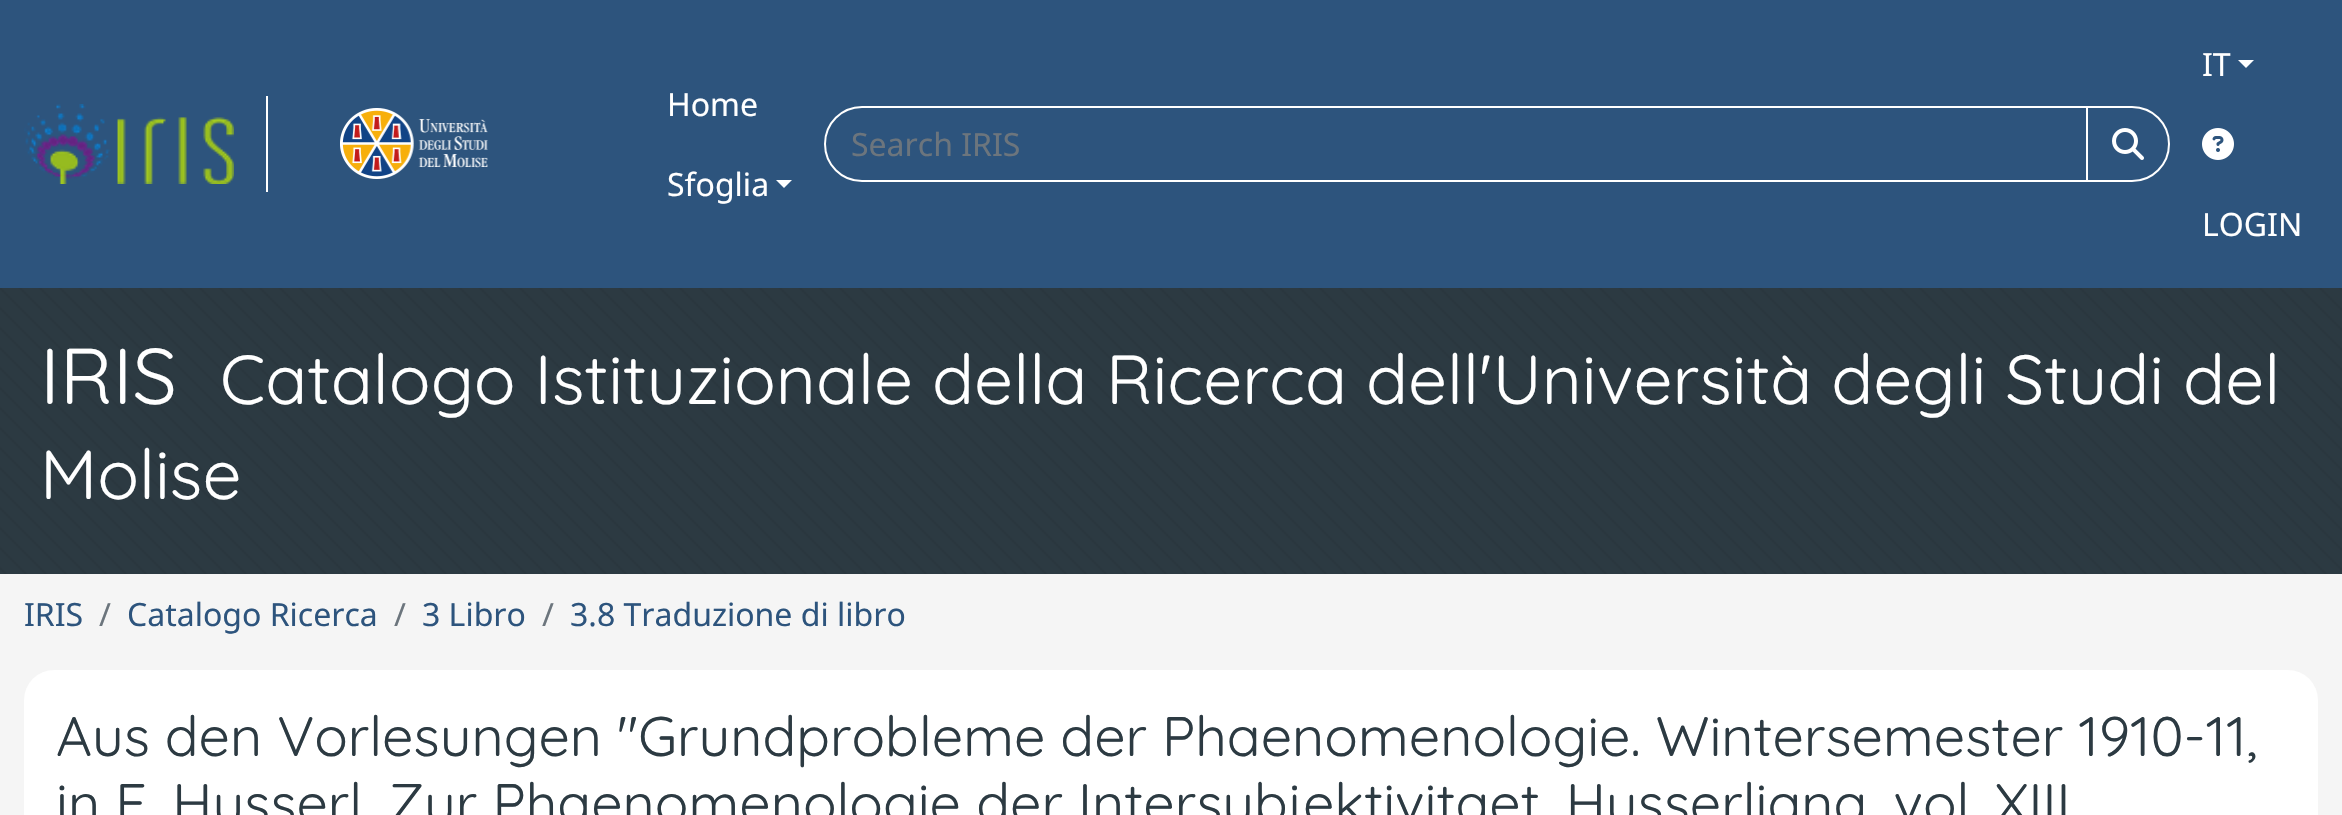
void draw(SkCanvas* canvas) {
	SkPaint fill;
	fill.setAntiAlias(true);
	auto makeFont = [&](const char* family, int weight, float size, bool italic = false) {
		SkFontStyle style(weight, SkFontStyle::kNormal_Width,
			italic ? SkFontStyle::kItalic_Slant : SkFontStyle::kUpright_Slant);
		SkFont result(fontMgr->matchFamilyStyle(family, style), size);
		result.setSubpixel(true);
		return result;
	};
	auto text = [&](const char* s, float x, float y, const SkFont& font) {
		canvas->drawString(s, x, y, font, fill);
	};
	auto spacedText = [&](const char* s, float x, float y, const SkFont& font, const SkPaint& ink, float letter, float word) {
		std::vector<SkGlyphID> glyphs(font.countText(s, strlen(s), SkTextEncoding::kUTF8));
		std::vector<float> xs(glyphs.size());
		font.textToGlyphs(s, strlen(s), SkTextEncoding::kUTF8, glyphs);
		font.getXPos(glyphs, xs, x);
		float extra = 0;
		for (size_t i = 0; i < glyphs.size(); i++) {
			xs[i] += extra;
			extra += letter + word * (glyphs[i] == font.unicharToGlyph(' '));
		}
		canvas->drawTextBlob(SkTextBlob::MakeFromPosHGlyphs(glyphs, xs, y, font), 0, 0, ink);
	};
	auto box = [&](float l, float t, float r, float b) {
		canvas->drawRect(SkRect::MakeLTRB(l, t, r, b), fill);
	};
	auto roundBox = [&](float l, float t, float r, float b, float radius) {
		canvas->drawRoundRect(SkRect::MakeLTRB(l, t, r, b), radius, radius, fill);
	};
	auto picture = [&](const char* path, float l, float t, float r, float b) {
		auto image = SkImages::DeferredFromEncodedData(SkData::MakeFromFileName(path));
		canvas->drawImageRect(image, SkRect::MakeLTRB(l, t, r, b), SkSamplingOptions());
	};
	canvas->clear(0xFFF5F5F5);
	fill.setColor(0xFF2D547D);
	box(0, 0, 2342, 288);
	fill.setColor(0xFFFFFFFF);
	box(266, 96, 268, 192);
	picture("image0.png", 24, 104, 234, 184);
	picture("image1.png", 340, 108, 488, 179);
	canvas->drawPath(SkPathBuilder().moveTo(776, 180).lineTo(792, 180).lineTo(784, 188).close().detach(), fill);
	fill.setStyle(SkPaint::kStroke_Style);
	fill.setStrokeWidth(2);
	canvas->drawPath(SkPathBuilder().moveTo(862, 107).lineTo(2087, 107).lineTo(2087, 181).lineTo(862, 181).cubicTo(841.5f, 181, 825, 164.5f, 825, 144).cubicTo(825, 123.5f, 841.5f, 107, 862, 107).close().detach(), fill);
	fill.setStyle(SkPaint::kFill_Style);
	fill.setColor(0xFF2D547D);
	canvas->drawPath(SkPathBuilder().moveTo(2087, 107).lineTo(2132, 107).cubicTo(2152.5f, 107, 2169, 123.5f, 2169, 144).cubicTo(2169, 164.5f, 2152.5f, 181, 2132, 181).lineTo(2087, 181).close().detach(), fill);
	fill.setStyle(SkPaint::kStroke_Style);
	fill.setColor(0xFFFFFFFF);
	canvas->drawPath(SkPathBuilder().moveTo(2087, 107).lineTo(2132, 107).cubicTo(2152.5f, 107, 2169, 123.5f, 2169, 144).cubicTo(2169, 164.5f, 2152.5f, 181, 2132, 181).lineTo(2087, 181).close().detach(), fill);
	picture("image2.png", 2112, 128, 2144, 160);
	fill.setStyle(SkPaint::kFill_Style);
	canvas->drawPath(SkPathBuilder().moveTo(2238, 60).lineTo(2254, 60).lineTo(2246, 68).close().detach(), fill);
	picture("image3.png", 2202, 128, 2234, 160);
	fill.setColor(0xFF2C3A42);
	box(0, 288, 2342, 574);
	picture("image4.png", 0, 288, 2342, 574);
	fill.setColor(0xFFFFFFFF);
	roundBox(24, 670, 2318, 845, 30);
	auto font1 = makeFont("Noto Sans", 400, 32);
	text("Home", 667, 116, font1);
	text("Sfoglia", 667, 196, font1);
	fill.setColor(0xFF6C757D);
	text("Search IRIS", 851, 156, font1);
	fill.setColor(0xFFFFFFFF);
	text("IT", 2202, 76, font1);
	text("LOGIN", 2202, 236, font1);
	auto font2 = makeFont("Quicksand", 400, 79);
	text("IRIS", 40, 404, font2);
	auto font3 = makeFont("Quicksand", 400, 69.25f);
	text("Catalogo Istituzionale della Ricerca dell'Università degli Studi del", 220, 404, font3);
	text("Molise", 40, 499, font3);
	fill.setColor(0xFF2D547D);
	text("IRIS", 24, 626, font1);
	fill.setColor(0xFF6C757D);
	text("/", 99, 626, font1);
	fill.setColor(0xFF2D547D);
	text("Catalogo Ricerca", 127, 626, font1);
	fill.setColor(0xFF6C757D);
	text("/", 394, 626, font1);
	fill.setColor(0xFF2D547D);
	text("3 Libro", 422, 626, font1);
	fill.setColor(0xFF6C757D);
	text("/", 542, 626, font1);
	fill.setColor(0xFF2D547D);
	text("3.8 Traduzione di libro", 570, 626, font1);
	auto font4 = makeFont("Quicksand", 400, 55.65f);
	fill.setColor(0xFF2C3A42);
	spacedText("Aus den Vorlesungen \"Grundprobleme der Phaenomenologie. Wintersemester 1910-11,", 56, 756, font4, fill, 0, -0.25f);
	text("in E. Husserl, Zur Phaenomenologie der Intersubjektivitaet, Husserliana, vol. XIII", 56, 823, font4);
}
